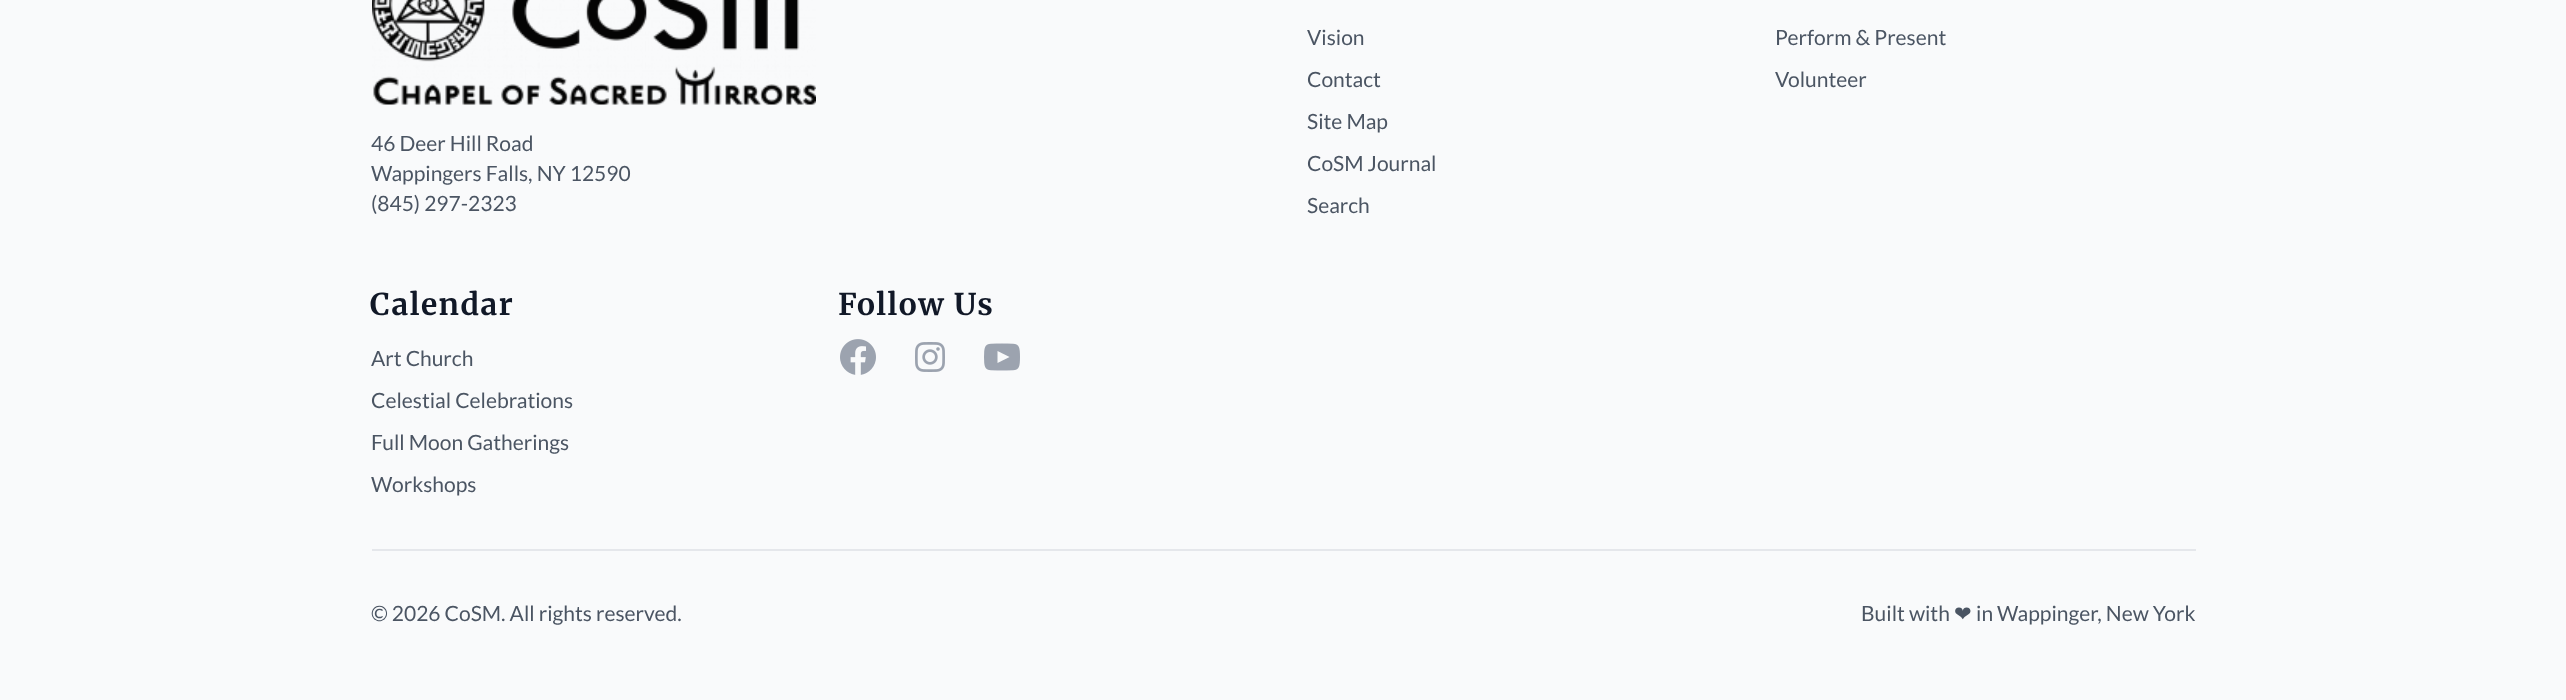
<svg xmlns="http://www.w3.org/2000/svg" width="2566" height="700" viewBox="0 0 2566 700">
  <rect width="100%" height="100%" fill="rgb(249,250,251)"/>
  <g font-family="Lato" font-size="21" fill="rgb(75,85,99)">
    <text x="1307" y="45">Vision</text>
    <text x="1307" y="87">Contact</text>
    <text x="1307" y="129">Site Map</text>
    <text x="1307" y="171">CoSM Journal</text>
    <text x="1307" y="213">Search</text>
    <text x="1775" y="45">Perform &amp; Present</text>
    <text x="1775" y="87">Volunteer</text>
  </g>
  <image x="372" y="0" width="444" height="105" href="pic1.png"/>
  <g font-family="Lato" font-size="21" fill="rgb(75,85,99)">
    <text>
      <tspan x="371" y="151">46 Deer Hill Road</tspan>
      <tspan x="371" y="181">Wappingers Falls, NY 12590</tspan>
      <tspan x="371" y="211">(845) 297-2323</tspan>
    </text>
  </g>
  <text x="370" y="315" font-family="Merriweather" font-size="30" font-weight="bold" letter-spacing="1.5" fill="rgb(17,24,39)">Calendar</text>
  <g font-family="Lato" font-size="21" fill="rgb(75,85,99)">
    <text x="371" y="366">Art Church</text>
    <text x="371" y="408">Celestial Celebrations</text>
    <text x="371" y="450">Full Moon Gatherings</text>
    <text x="371" y="492">Workshops</text>
  </g>
  <text x="838" y="315" font-family="Merriweather" font-size="30" font-weight="bold" letter-spacing="1.5" fill="rgb(17,24,39)">Follow Us</text>
  <image x="840" y="339" width="36" height="36" href="pic2.png"/>
  <image x="915" y="342" width="30" height="30" href="pic3.png"/>
  <image x="984" y="343" width="36" height="28" href="pic4.png"/>
  <rect x="372" y="549" width="1824" height="2" fill="rgb(229,231,235)"/>
  <g font-family="Lato" font-size="21" fill="rgb(75,85,99)">
    <text x="371" y="621">© 2026 CoSM. All rights reserved.</text>
    <text x="1861" y="621">Built with</text>
  </g>
  <text x="1954" y="621" font-family="DejaVu Sans" font-size="21" fill="rgb(75,85,99)">❤</text>
  <text x="1976" y="621" font-family="Lato" font-size="21" fill="rgb(75,85,99)">in Wappinger, New York</text>
</svg>
